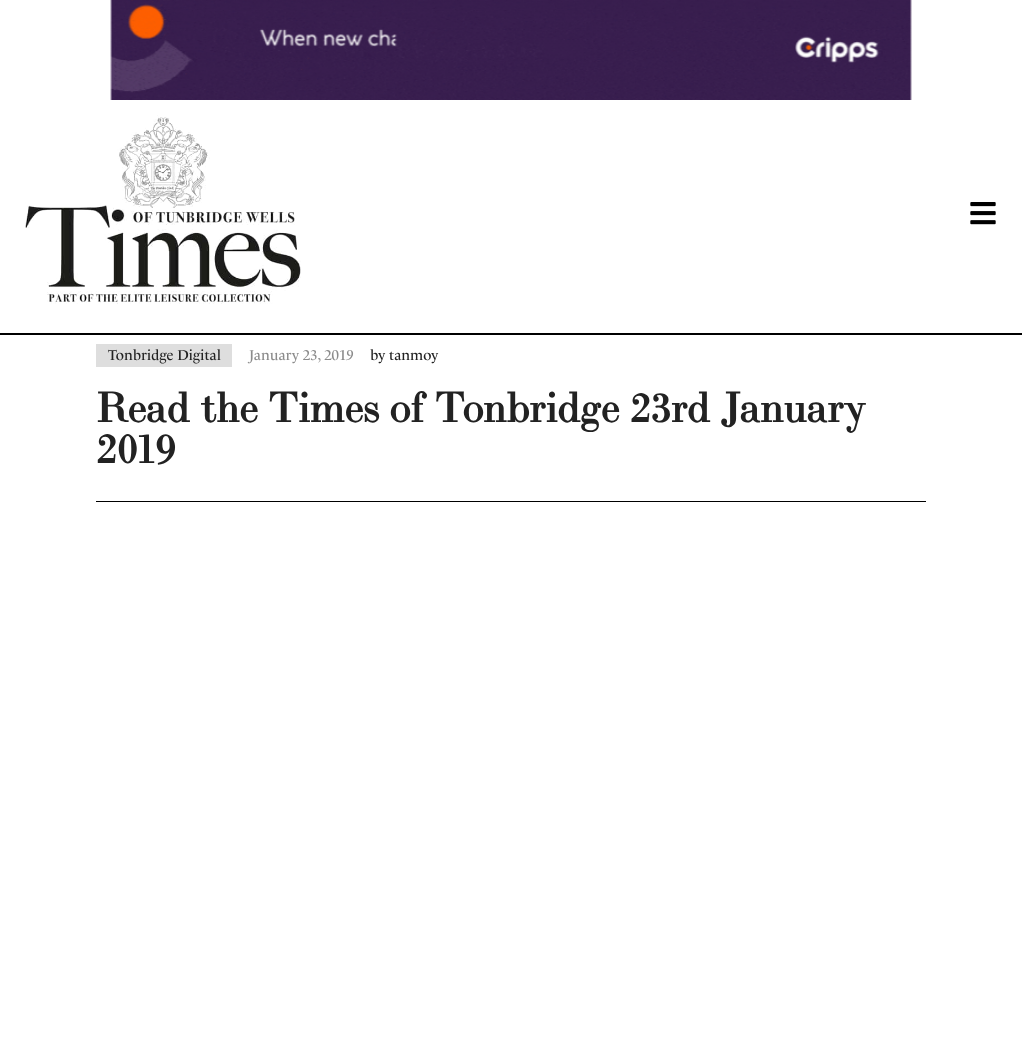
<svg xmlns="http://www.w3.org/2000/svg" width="1022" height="1060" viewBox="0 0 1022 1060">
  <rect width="100%" height="100%" fill="rgb(255,255,255)"/>
  <image x="110" y="0" width="802" height="100" href="pic1.png"/>
  <rect x="0" y="333" width="1022" height="2" fill="rgb(0,0,0)"/>
  <image x="25" y="115" width="276" height="189" href="pic2.png"/>
  <image x="970" y="202" width="26" height="23" href="pic3.png"/>
  <rect x="96" y="344" width="136" height="23" fill="rgb(222,222,222)"/>
  <text x="108" y="360" font-family="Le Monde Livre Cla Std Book" font-size="14.5" fill="rgb(34,34,34)">Tonbridge Digital</text>
  <text x="249" y="360" font-family="Le Monde Livre Cla Std Book" font-size="14.5" fill="rgb(139,139,139)">January 23, 2019</text>
  <text x="370" y="360" font-family="Le Monde Livre Cla Std Book" font-size="14.5" fill="rgb(34,34,34)">by tanmoy</text>
  <g font-family="'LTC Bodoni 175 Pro'" font-size="41.6" font-weight="bold" fill="rgb(34,34,34)">
    <text>
      <tspan x="96" y="422">Read the Times of Tonbridge 23rd January</tspan>
      <tspan x="96" y="463">2019</tspan>
    </text>
  </g>
  <rect x="96" y="501" width="830" height="1" fill="rgb(0,0,0)"/>
</svg>
